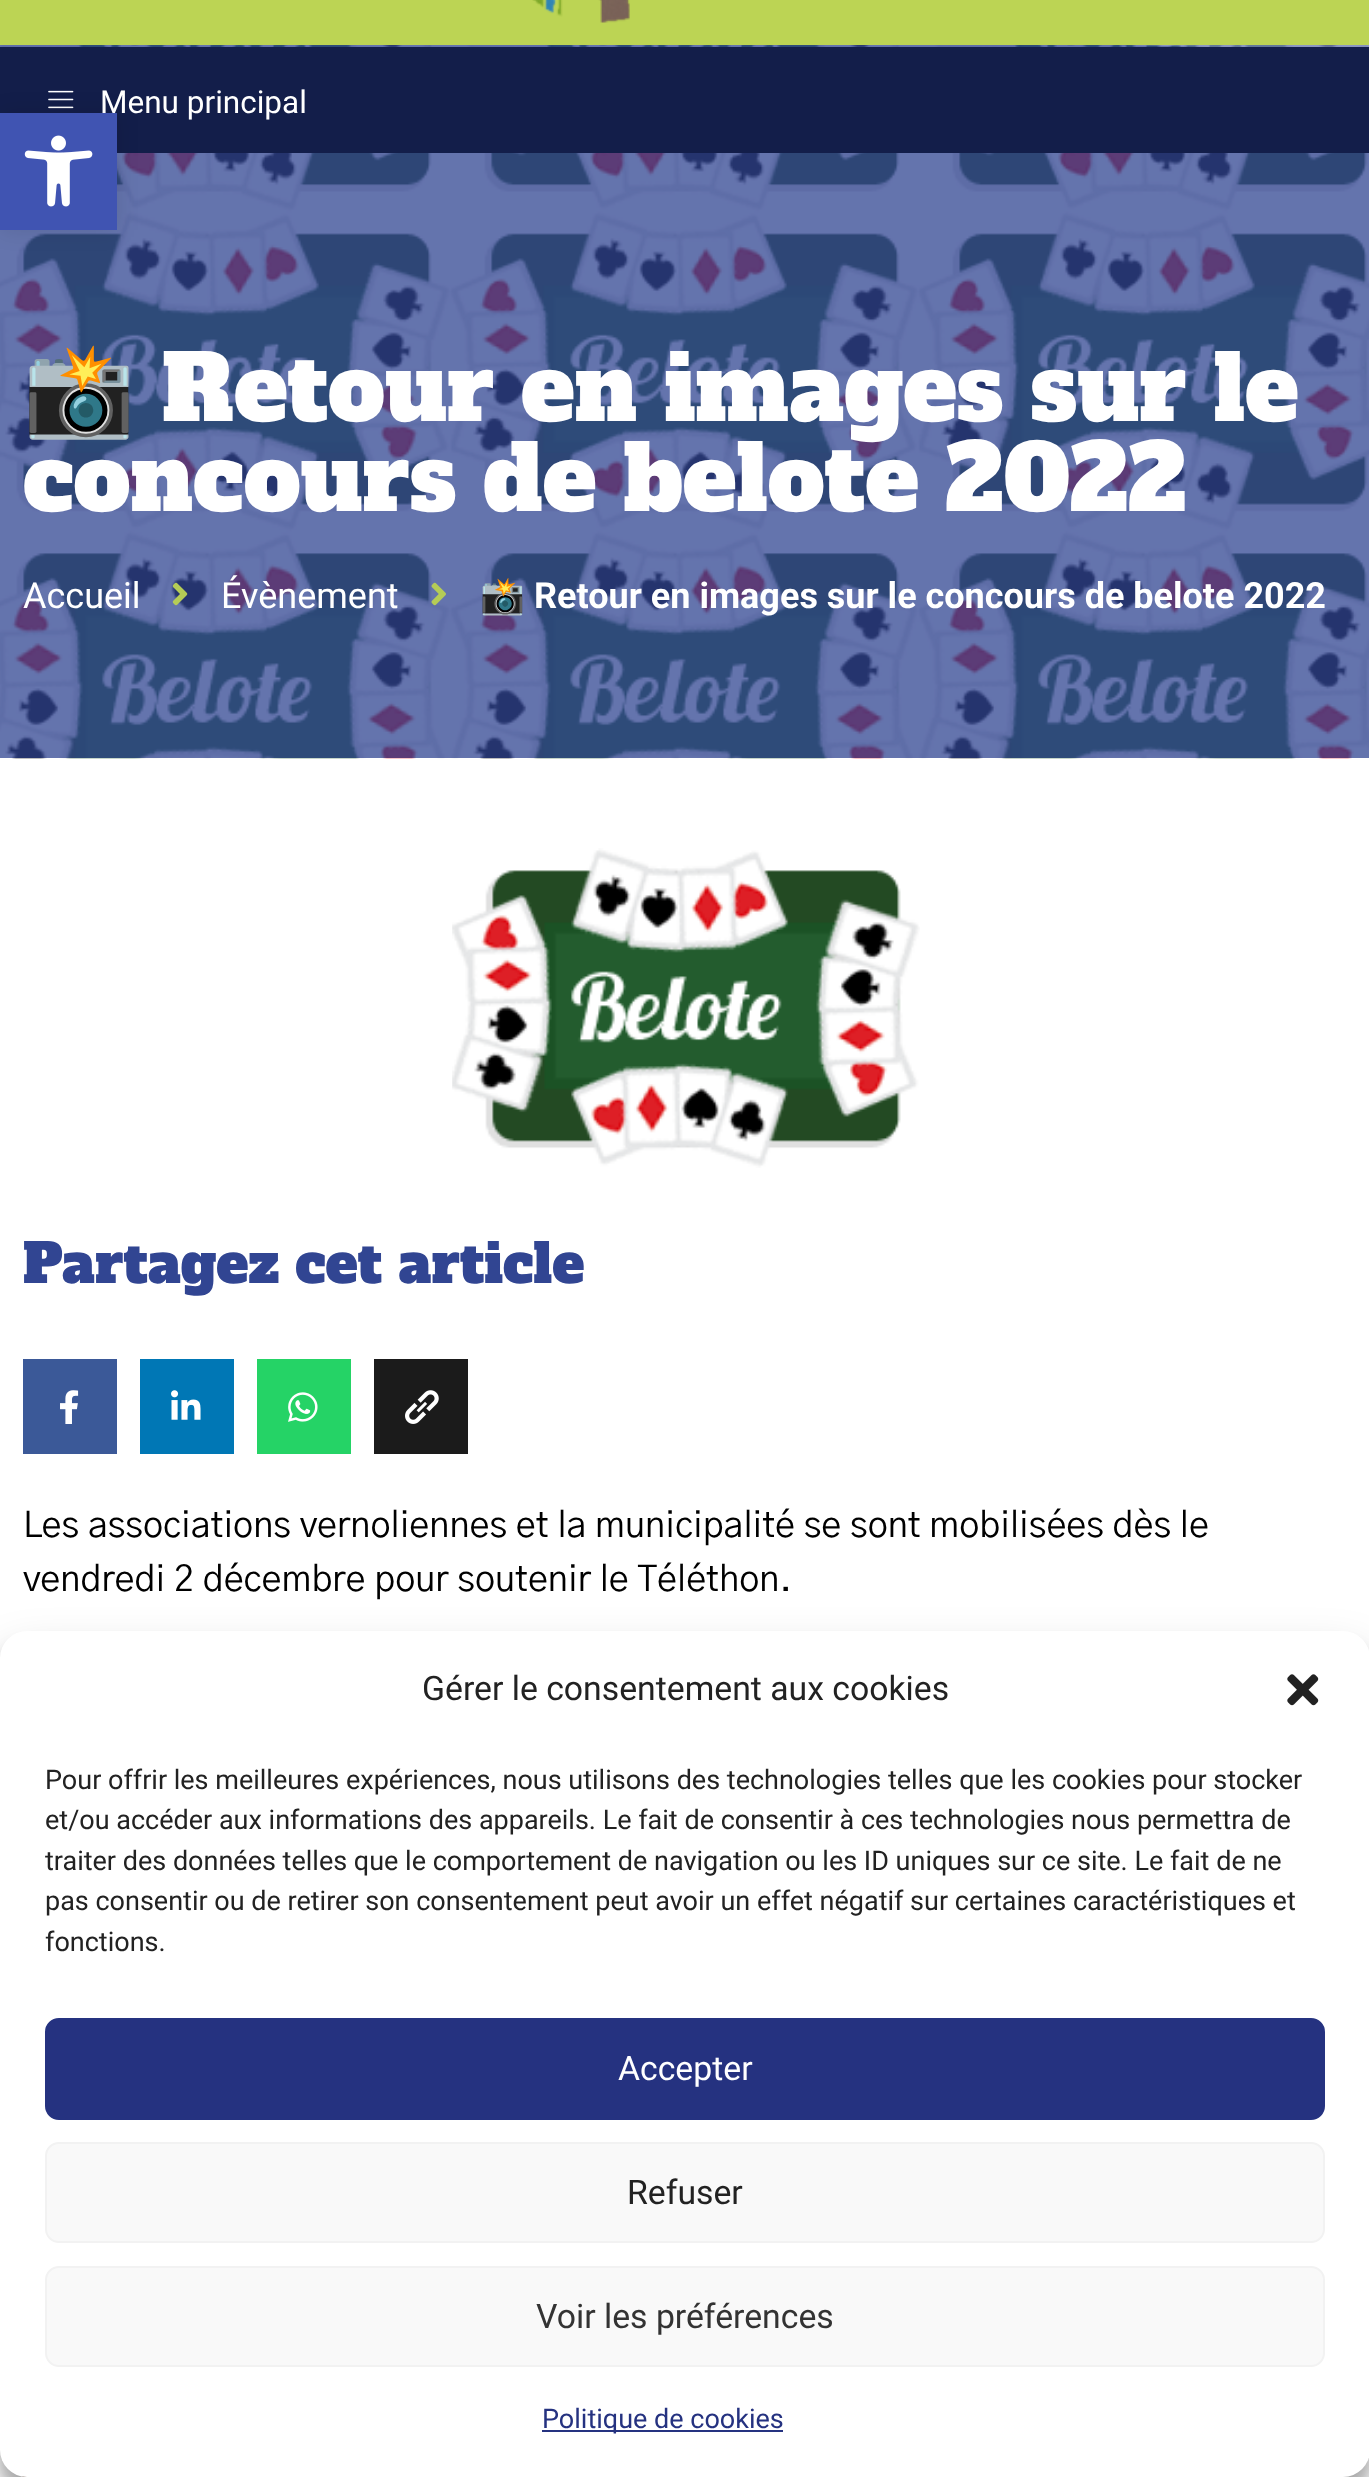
<svg xmlns="http://www.w3.org/2000/svg" width="1369" height="2477" viewBox="0 0 1369 2477">
  <rect width="100%" height="100%" fill="rgb(255,255,255)"/>
  <image x="0" y="45" width="1369" height="714" href="pic4.png"/>
  <path d="M-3-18H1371V51L-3 18Z" fill="rgba(255,255,255,0.25)"/>
  <rect x="0" y="47" width="1369" height="106" fill="rgb(19,30,74)"/>
  <image x="48" y="90" width="26" height="19" href="pic3.png"/>
  <rect x="0" y="113" width="117" height="117" fill="rgba(0,0,0,0.1)" filter="blur(11px)"/>
  <text x="100" y="113" font-family="Roboto" font-size="31.5" fill="rgb(255,255,255)">Menu principal</text>
  <rect x="0" y="113" width="117" height="117" fill="rgb(64,84,178)"/>
  <image x="24" y="135" width="69" height="72" href="pic1.png"/>
  <rect x="0" y="0" width="1369" height="45" fill="rgb(188,212,84)"/>
  <image x="532" y="0" width="98" height="23" href="pic2.png"/>
  <text x="23" y="421" font-family="Noto Color Emoji" font-size="90" fill="rgb(255,255,255)">📸</text>
  <g font-family="Alfa Slab One" font-size="90" fill="rgb(255,255,255)">
    <text x="162" y="421">Retour en images sur le</text>
    <text x="23" y="511">concours de belote 2022</text>
  </g>
  <text x="23" y="608" font-family="Roboto" font-size="36" fill="rgb(255,255,255)">Accueil</text>
  <image x="172" y="582" width="16" height="24" href="pic5.png"/>
  <text x="221" y="608" font-family="Roboto" font-size="36" fill="rgb(255,255,255)">Évènement</text>
  <image x="431" y="582" width="15" height="24" href="pic6.png"/>
  <text x="480" y="608" font-family="Noto Color Emoji" font-size="36" font-weight="bold" fill="rgb(255,255,255)">📸</text>
  <text x="534" y="608" font-family="Roboto" font-size="36" font-weight="bold" fill="rgb(255,255,255)">Retour en images sur le concours de belote 2022</text>
  <image x="452" y="848" width="468" height="320" href="pic7.png"/>
  <text x="23" y="1283" font-family="Alfa Slab One" font-size="54" fill="rgb(49,69,146)">Partagez cet article</text>
  <rect x="23" y="1359" width="94" height="95" fill="rgb(59,89,152)"/>
  <image x="60" y="1390" width="19" height="34" href="pic8.png"/>
  <rect x="140" y="1359" width="94" height="95" fill="rgb(0,119,181)"/>
  <image x="171" y="1390" width="30" height="30" href="pic9.png"/>
  <rect x="257" y="1359" width="94" height="95" fill="rgb(37,211,102)"/>
  <image x="288" y="1392" width="30" height="30" href="pic10.png"/>
  <rect x="374" y="1359" width="94" height="95" fill="rgb(27,27,27)"/>
  <image x="405" y="1390" width="34" height="34" href="pic11.png"/>
  <g font-family="'Gothic A1'" font-size="36" fill="rgb(0,0,0)">
    <text>
      <tspan x="23" y="1537">Les associations vernoliennes et la municipalité se sont mobilisées dès le</tspan>
      <tspan x="23" y="1591">vendredi 2 décembre pour soutenir le Téléthon.</tspan>
    </text>
  </g>
  <image x="22" y="2476" width="5" height="1" href="pic12.png"/>
  <rect x="0" y="1645" width="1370" height="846" rx="27" fill="rgba(0,0,0,0.23)" filter="blur(7px)"/>
  <rect x="0" y="1654" width="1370" height="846" rx="27" fill="rgba(0,0,0,0.19)" filter="blur(22.5px)"/>
  <rect x="0" y="1631" width="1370" height="846" rx="27" fill="rgb(255,255,255)"/>
  <text x="422" y="1700" font-family="Roboto" font-size="33.75" fill="rgb(34,34,34)">Gérer le consentement aux cookies</text>
  <image x="1287" y="1674" width="32" height="32" href="pic13.png"/>
  <g font-family="Roboto" font-size="27" fill="rgb(34,34,34)">
    <text>
      <tspan x="45" y="1789">Pour offrir les meilleures expériences, nous utilisons des technologies telles que les cookies pour stocker</tspan>
      <tspan x="45" y="1829">et/ou accéder aux informations des appareils. Le fait de consentir à ces technologies nous permettra de</tspan>
      <tspan x="45" y="1870">traiter des données telles que le comportement de navigation ou les ID uniques sur ce site. Le fait de ne</tspan>
      <tspan x="45" y="1910">pas consentir ou de retirer son consentement peut avoir un effet négatif sur certaines caractéristiques et</tspan>
      <tspan x="45" y="1951">fonctions.</tspan>
    </text>
  </g>
  <rect x="46" y="2019" width="1278" height="100" rx="13" fill="rgb(37,50,128)" stroke="rgb(37,50,128)" stroke-width="2"/>
  <text x="618" y="2080" font-family="Roboto" font-size="33.75" fill="rgb(255,255,255)">Accepter</text>
  <rect x="46" y="2143" width="1278" height="99" rx="13" fill="rgb(249,249,249)" stroke="rgb(242,242,242)" stroke-width="2"/>
  <text x="627" y="2204" font-family="Roboto" font-size="33.75" fill="rgb(34,34,34)">Refuser</text>
  <rect x="46" y="2267" width="1278" height="99" rx="13" fill="rgb(249,249,249)" stroke="rgb(242,242,242)" stroke-width="2"/>
  <text x="536" y="2328" font-family="Roboto" font-size="33.75" fill="rgb(51,51,51)">Voir les préférences</text>
  <rect x="542" y="2430" width="241" height="2" fill="rgb(37,50,128)"/>
  <text x="542" y="2428" font-family="Roboto" font-size="27" fill="rgb(37,50,128)">Politique de cookies</text>
</svg>
